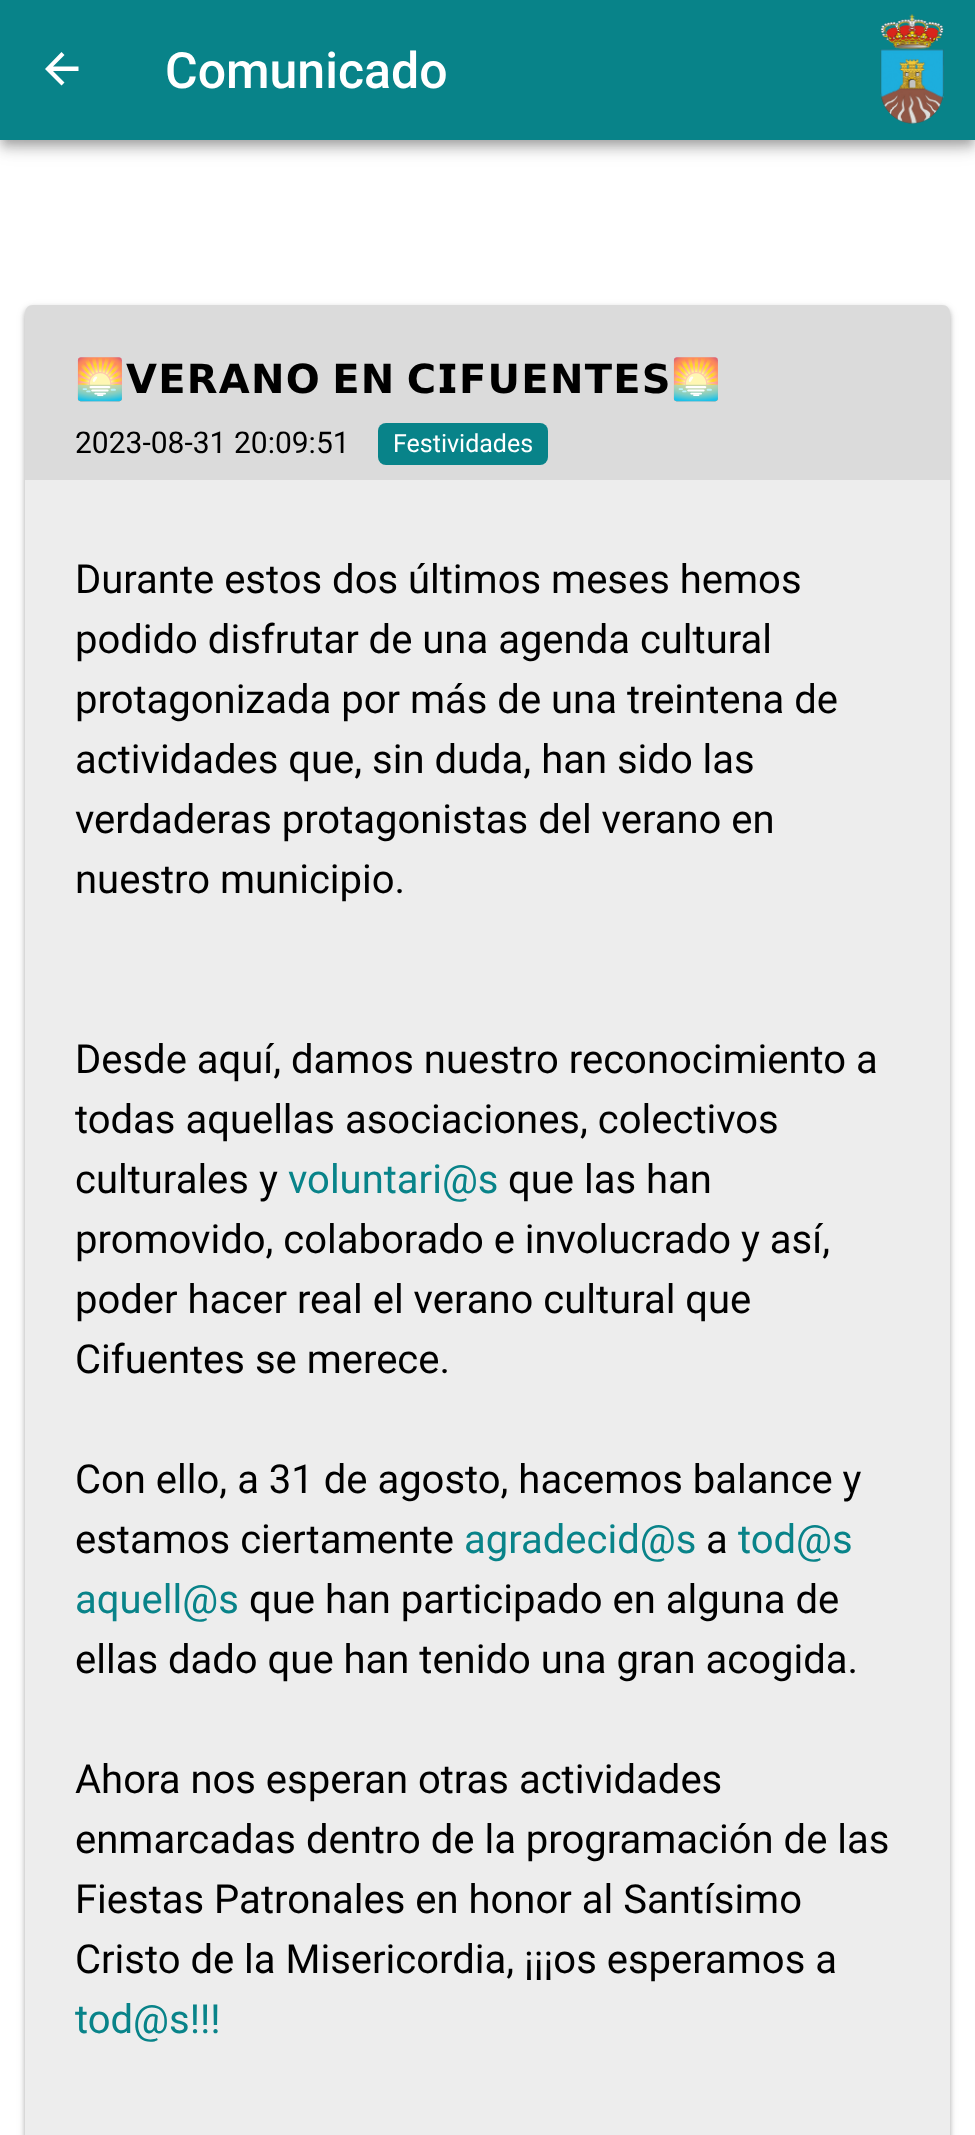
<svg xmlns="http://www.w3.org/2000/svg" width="975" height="2135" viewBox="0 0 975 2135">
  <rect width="100%" height="100%" fill="rgb(255,255,255)"/>
  <rect x="0" y="3" width="975" height="140" fill="rgba(0,0,0,0.12)" filter="blur(12.5px)"/>
  <rect x="0" y="10" width="975" height="140" fill="rgba(0,0,0,0.14)" filter="blur(6px)"/>
  <rect x="3" y="8" width="970" height="135" fill="rgba(0,0,0,0.2)" filter="blur(5px)"/>
  <rect x="0" y="0" width="975" height="140" fill="rgb(8,131,137)"/>
  <path d="M78.5 66.5V71H53L64.5 82.5L61.5 85.5L45 69L61.5 52L64.5 55L53 66.5Z" fill="rgb(255,255,255)"/>
  <text x="165" y="88" font-family="Roboto" font-size="50" font-weight="500" fill="rgb(255,255,255)">Comunicado</text>
  <image x="880" y="14" width="64" height="110" href="pic1.png"/>
  <rect x="25" y="308" width="925" height="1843" rx="8" fill="rgba(0,0,0,0.24)" filter="blur(2.5px)"/>
  <rect x="25" y="308" width="925" height="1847" rx="8" fill="rgba(0,0,0,0.12)" filter="blur(4px)"/>
  <path d="M33 305H942C946.5 305 950 308.5 950 313V2135H25V313C25 308.5 28.5 305 33 305Z" fill="rgb(237,237,237)"/>
  <path d="M33 305H942C946.5 305 950 308.5 950 313V480H25V313C25 308.5 28.5 305 33 305Z" fill="rgb(219,219,219)"/>
  <text x="75" y="393" font-family="Noto Color Emoji" font-size="40" font-weight="bold" letter-spacing="1.25" fill="rgb(0,0,0)">🌅</text>
  <text x="126" y="393" word-spacing="-4" font-family="DejaVu Sans" font-size="40" font-weight="bold" letter-spacing="1.25" fill="rgb(0,0,0)">𝗩𝗘𝗥𝗔𝗡𝗢 𝗘𝗡 𝗖𝗜𝗙𝗨𝗘𝗡𝗧𝗘𝗦</text>
  <text x="671" y="393" font-family="Noto Color Emoji" font-size="40" font-weight="bold" letter-spacing="1.25" fill="rgb(0,0,0)">🌅</text>
  <text x="75" y="453" font-family="Roboto" font-size="30" fill="rgb(0,0,0)">2023-08-31 20:09:51</text>
  <rect x="378" y="423" width="170" height="42" rx="8" fill="rgb(8,131,137)"/>
  <text x="393" y="452" font-family="Roboto" font-size="25" fill="rgb(255,255,255)">Festividades</text>
  <g font-family="Roboto" font-size="40" fill="rgb(0,0,0)">
    <text>
      <tspan x="75" y="593">Durante estos dos últimos meses hemos</tspan>
      <tspan x="75" y="653">podido disfrutar de una agenda cultural</tspan>
      <tspan x="75" y="713">protagonizada por más de una treintena de</tspan>
      <tspan x="75" y="773">actividades que, sin duda, han sido las</tspan>
      <tspan x="75" y="833">verdaderas protagonistas del verano en</tspan>
      <tspan x="75" y="893">nuestro municipio.</tspan>
    </text>
    <text>
      <tspan x="75" y="1073">Desde aquí, damos nuestro reconocimiento a</tspan>
      <tspan x="75" y="1133">todas aquellas asociaciones, colectivos</tspan>
      <tspan x="75" y="1193">culturales y</tspan>
    </text>
  </g>
  <text x="288" y="1193" font-family="Roboto" font-size="40" fill="rgb(8,131,137)">voluntari@s</text>
  <g font-family="Roboto" font-size="40" fill="rgb(0,0,0)">
    <text x="508" y="1193">que las han</text>
    <text>
      <tspan x="75" y="1253">promovido, colaborado e involucrado y así,</tspan>
      <tspan x="75" y="1313">poder hacer real el verano cultural que</tspan>
      <tspan x="75" y="1373">Cifuentes se merece.</tspan>
    </text>
    <text>
      <tspan x="75" y="1493">Con ello, a 31 de agosto, hacemos balance y</tspan>
      <tspan x="75" y="1553">estamos ciertamente</tspan>
    </text>
  </g>
  <text x="464" y="1553" font-family="Roboto" font-size="40" fill="rgb(8,131,137)">agradecid@s</text>
  <text x="706" y="1553" font-family="Roboto" font-size="40" fill="rgb(0,0,0)">a</text>
  <g font-family="Roboto" font-size="40" fill="rgb(8,131,137)">
    <text x="738" y="1553">tod@s</text>
    <text x="75" y="1613">aquell@s</text>
  </g>
  <g font-family="Roboto" font-size="40" fill="rgb(0,0,0)">
    <text x="249" y="1613">que han participado en alguna de</text>
    <text x="75" y="1673">ellas dado que han tenido una gran acogida.</text>
    <text>
      <tspan x="75" y="1793">Ahora nos esperan otras actividades</tspan>
      <tspan x="75" y="1853">enmarcadas dentro de la programación de las</tspan>
      <tspan x="75" y="1913">Fiestas Patronales en honor al Santísimo</tspan>
      <tspan x="75" y="1973">Cristo de la Misericordia, ¡¡¡os esperamos a</tspan>
    </text>
  </g>
  <text x="75" y="2033" font-family="Roboto" font-size="40" fill="rgb(8,131,137)">tod@s!!!</text>
</svg>
